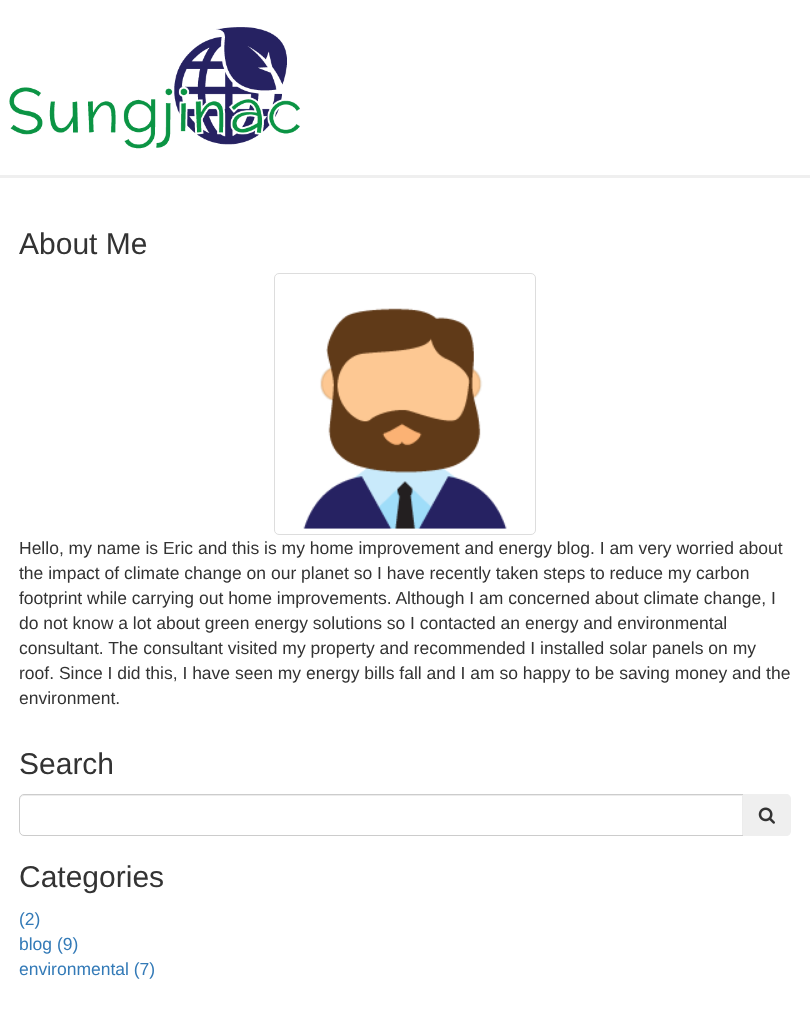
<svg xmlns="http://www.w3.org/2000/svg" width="810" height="1027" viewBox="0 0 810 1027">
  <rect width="100%" height="100%" fill="rgb(255,255,255)"/>
  <rect x="0" y="175" width="810" height="3" fill="rgb(239,239,239)"/>
  <image x="9" y="27" width="291" height="122" href="pic1.png"/>
  <text x="19" y="254" font-family="Liberation Sans" font-size="30" fill="rgb(51,51,51)">About Me</text>
  <rect x="274.5" y="273.5" width="261" height="261" rx="4.5" fill="none" stroke="rgb(221,221,221)"/>
  <image x="303" y="308" width="204" height="221" href="pic2.png"/>
  <g font-family="Liberation Sans" font-size="17.5" fill="rgb(51,51,51)">
    <text>
      <tspan x="19" y="554">Hello, my name is Eric and this is my home improvement and energy blog. I am very worried about</tspan>
      <tspan x="19" y="579">the impact of climate change on our planet so I have recently taken steps to reduce my carbon</tspan>
      <tspan x="19" y="604">footprint while carrying out home improvements. Although I am concerned about climate change, I</tspan>
      <tspan x="19" y="629">do not know a lot about green energy solutions so I contacted an energy and environmental</tspan>
      <tspan x="19" y="654">consultant. The consultant visited my property and recommended I installed solar panels on my</tspan>
      <tspan x="19" y="679">roof. Since I did this, I have seen my energy bills fall and I am so happy to be saving money and the</tspan>
      <tspan x="19" y="704">environment.</tspan>
    </text>
  </g>
  <text x="19" y="774" font-family="Liberation Sans" font-size="30" fill="rgb(51,51,51)">Search</text>
  <path d="M24 796H742V835H743V795H24C22 795 20 797 20 799V800C20 798 22 796 24 796Z" fill="rgb(236,236,236)"/>
  <path d="M24 794.5H743.5V835.5H24C21.5 835.5 19.5 833.5 19.5 831V799C19.5 796.5 21.5 794.5 24 794.5Z" fill="none" stroke="rgb(204,204,204)"/>
  <path d="M743 794H786C789 794 791 796 791 799V831C791 834 789 836 786 836H743Z" fill="rgb(239,239,239)"/>
  <image x="758" y="807" width="17" height="17" href="pic3.png"/>
  <text x="19" y="887" font-family="Liberation Sans" font-size="30" fill="rgb(51,51,51)">Categories</text>
  <g font-family="Liberation Sans" font-size="17.5" fill="rgb(51,122,183)">
    <text>
      <tspan x="19" y="925">(2)</tspan>
      <tspan x="19" y="950">blog (9)</tspan>
      <tspan x="19" y="975">environmental (7)</tspan>
    </text>
  </g>
</svg>
